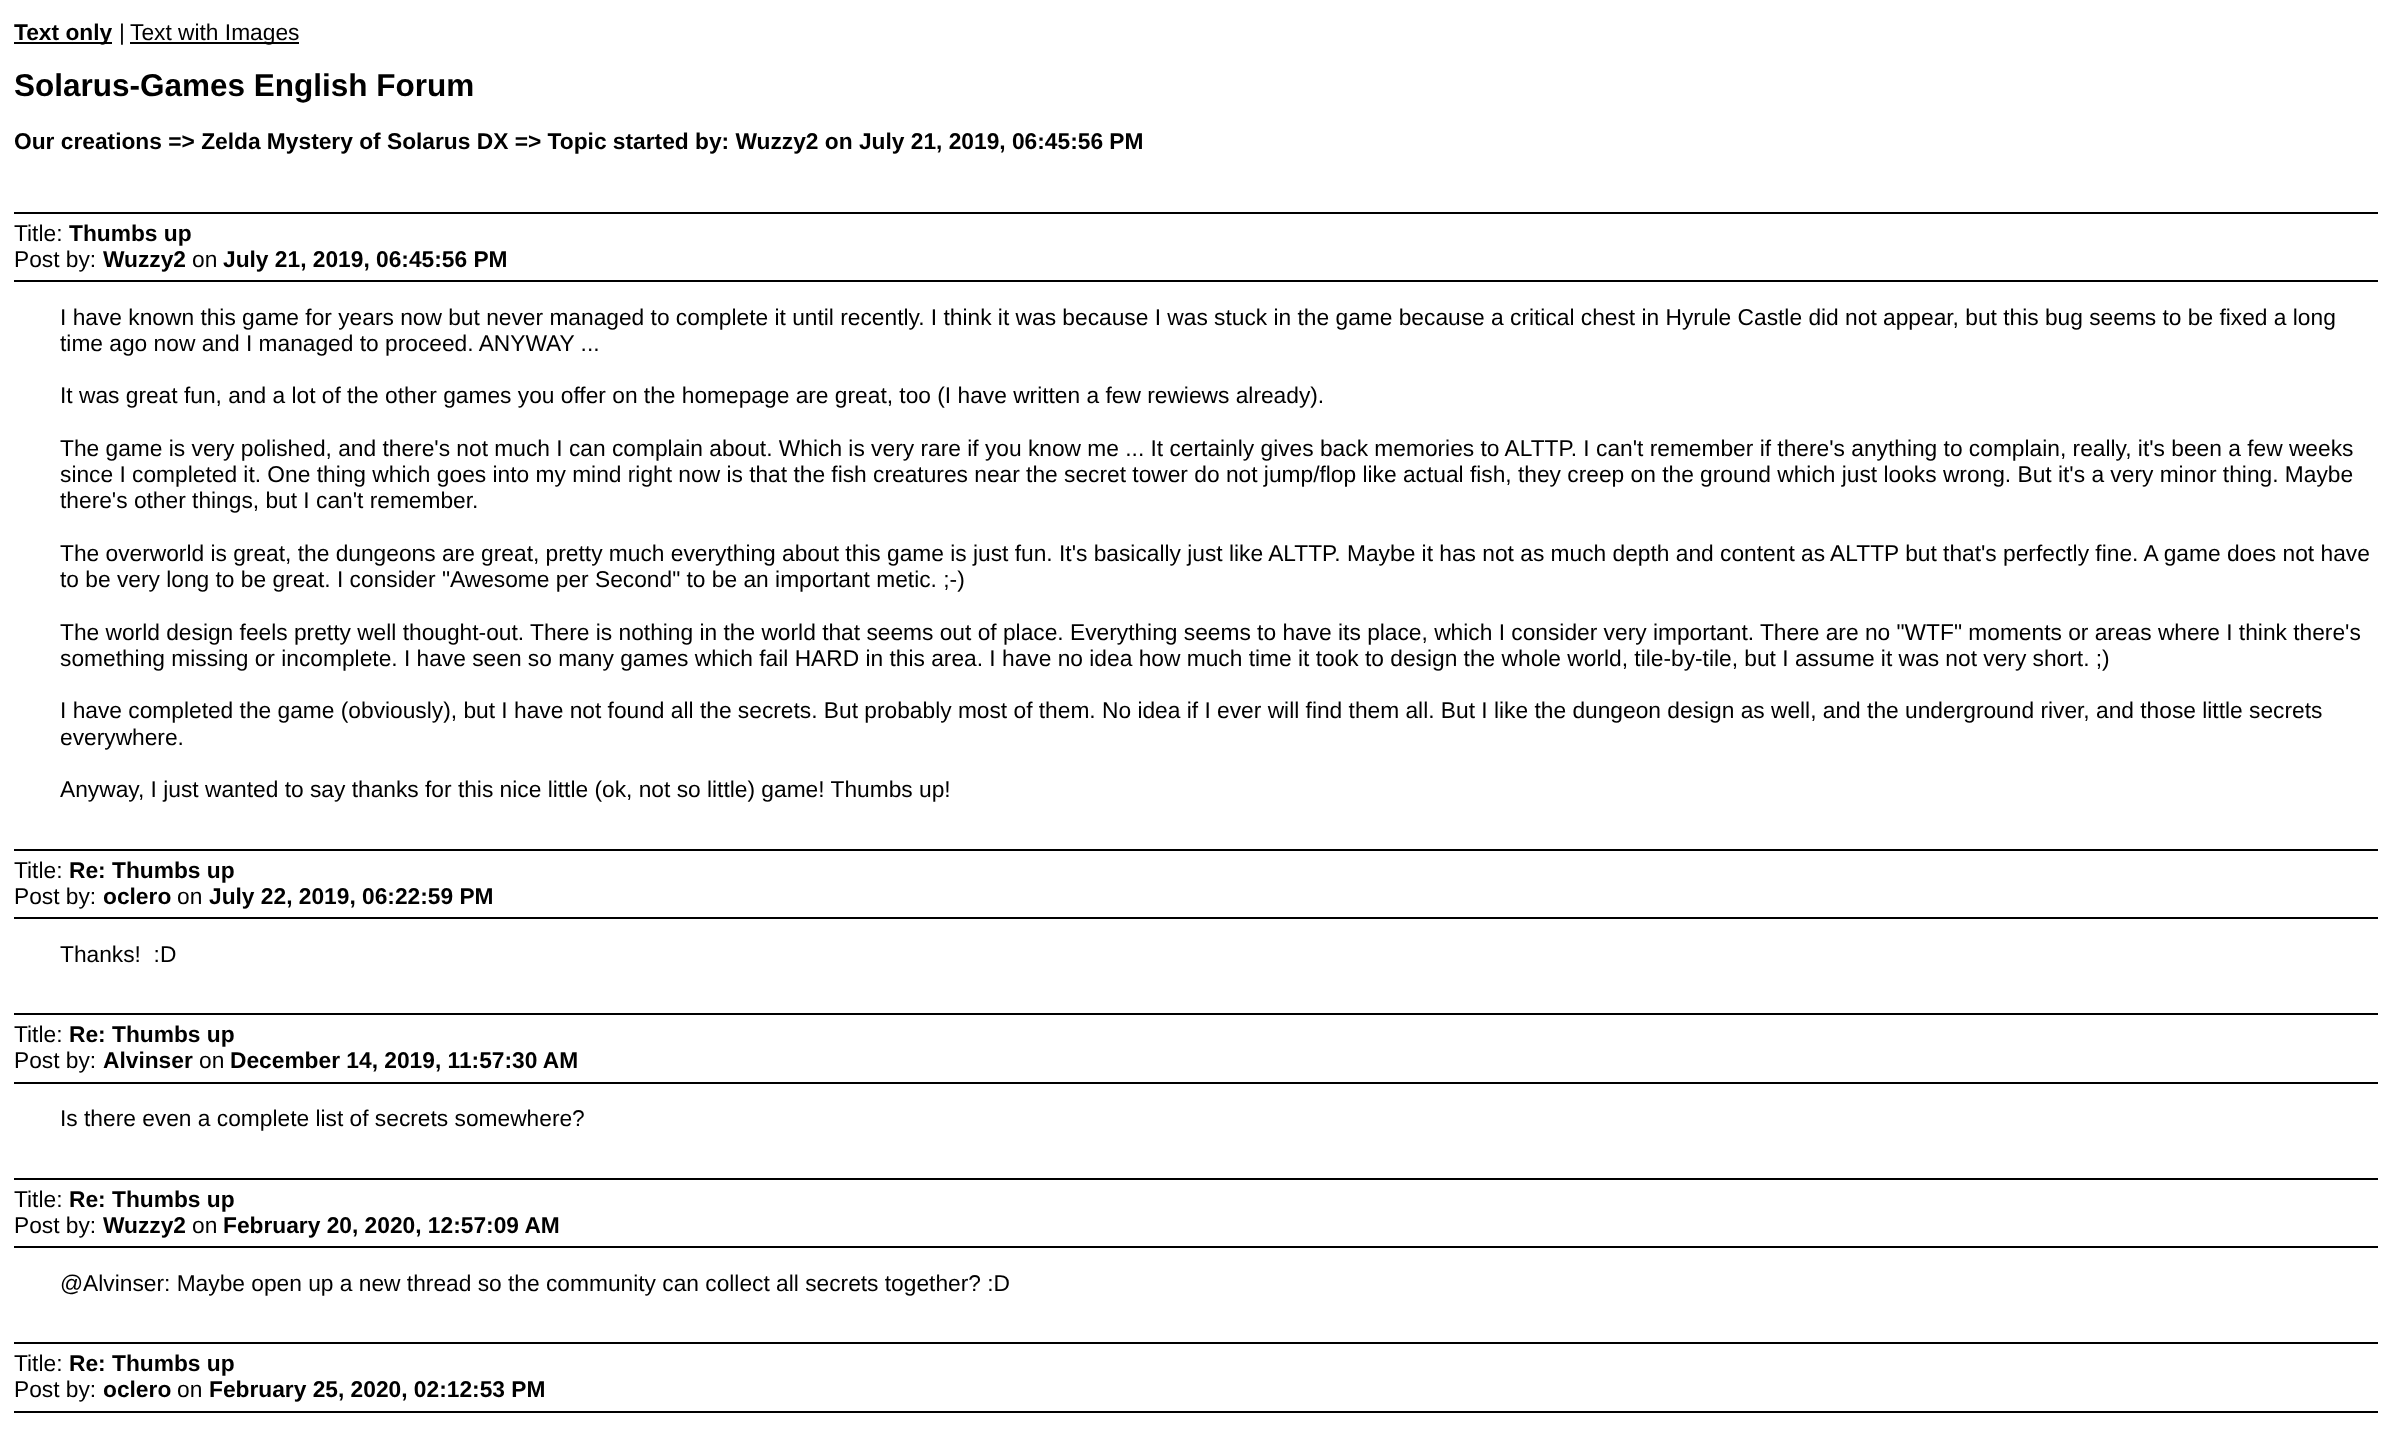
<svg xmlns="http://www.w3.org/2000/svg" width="2391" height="1429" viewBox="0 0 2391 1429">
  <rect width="100%" height="100%" fill="rgb(255,255,255)"/>
  <rect x="14" y="42" width="98" height="2" fill="rgb(0,0,0)"/>
  <text x="14" y="40" font-family="Liberation Sans" font-size="22.75" font-weight="bold" fill="rgb(0,0,0)">Text only</text>
  <text x="119" y="40" font-family="Liberation Sans" font-size="22.75" fill="rgb(0,0,0)">|</text>
  <rect x="130" y="42" width="169" height="2" fill="rgb(0,0,0)"/>
  <text x="130" y="40" font-family="Liberation Sans" font-size="22.75" fill="rgb(0,0,0)">Text with Images</text>
  <text x="14" y="96" font-family="Liberation Sans" font-size="31.5" font-weight="bold" fill="rgb(0,0,0)">Solarus-Games English Forum</text>
  <text x="14" y="149" font-family="Liberation Sans" font-size="22.75" font-weight="bold" fill="rgb(0,0,0)">Our creations =&gt; Zelda Mystery of Solarus DX =&gt; Topic started by: Wuzzy2 on July 21, 2019, 06:45:56 PM</text>
  <rect x="14" y="212" width="2364" height="2" fill="rgb(0,0,0)"/>
  <rect x="14" y="280" width="2364" height="2" fill="rgb(0,0,0)"/>
  <text x="14" y="241" font-family="Liberation Sans" font-size="22.75" fill="rgb(0,0,0)">Title:</text>
  <text x="69" y="241" font-family="Liberation Sans" font-size="22.75" font-weight="bold" fill="rgb(0,0,0)">Thumbs up</text>
  <text x="14" y="267" font-family="Liberation Sans" font-size="22.75" fill="rgb(0,0,0)">Post by:</text>
  <text x="103" y="267" font-family="Liberation Sans" font-size="22.75" font-weight="bold" fill="rgb(0,0,0)">Wuzzy2</text>
  <text x="192" y="267" font-family="Liberation Sans" font-size="22.75" fill="rgb(0,0,0)">on</text>
  <text x="223" y="267" font-family="Liberation Sans" font-size="22.75" font-weight="bold" fill="rgb(0,0,0)">July 21, 2019, 06:45:56 PM</text>
  <g font-family="Liberation Sans" font-size="22.75" fill="rgb(0,0,0)">
    <text>
      <tspan x="60" y="325">I have known this game for years now but never managed to complete it until recently. I think it was because I was stuck in the game because a critical chest in Hyrule Castle did not appear, but this bug seems to be fixed a long</tspan>
      <tspan x="60" y="351">time ago now and I managed to proceed. ANYWAY ...</tspan>
    </text>
    <text x="60" y="403">It was great fun, and a lot of the other games you offer on the homepage are great, too (I have written a few rewiews already).</text>
    <text>
      <tspan x="60" y="456">The game is very polished, and there's not much I can complain about. Which is very rare if you know me ... It certainly gives back memories to ALTTP. I can't remember if there's anything to complain, really, it's been a few weeks</tspan>
      <tspan x="60" y="482">since I completed it. One thing which goes into my mind right now is that the fish creatures near the secret tower do not jump/flop like actual fish, they creep on the ground which just looks wrong. But it's a very minor thing. Maybe</tspan>
      <tspan x="60" y="508">there's other things, but I can't remember.</tspan>
    </text>
    <text>
      <tspan x="60" y="561">The overworld is great, the dungeons are great, pretty much everything about this game is just fun. It's basically just like ALTTP. Maybe it has not as much depth and content as ALTTP but that's perfectly fine. A game does not have</tspan>
      <tspan x="60" y="587">to be very long to be great. I consider "Awesome per Second" to be an important metic. ;-)</tspan>
    </text>
    <text>
      <tspan x="60" y="640">The world design feels pretty well thought-out. There is nothing in the world that seems out of place. Everything seems to have its place, which I consider very important. There are no "WTF" moments or areas where I think there's</tspan>
      <tspan x="60" y="666">something missing or incomplete. I have seen so many games which fail HARD in this area. I have no idea how much time it took to design the whole world, tile-by-tile, but I assume it was not very short. ;)</tspan>
    </text>
    <text>
      <tspan x="60" y="718">I have completed the game (obviously), but I have not found all the secrets. But probably most of them. No idea if I ever will find them all. But I like the dungeon design as well, and the underground river, and those little secrets</tspan>
      <tspan x="60" y="745">everywhere.</tspan>
    </text>
    <text x="60" y="797">Anyway, I just wanted to say thanks for this nice little (ok, not so little) game! Thumbs up!</text>
  </g>
  <rect x="14" y="849" width="2364" height="2" fill="rgb(0,0,0)"/>
  <rect x="14" y="917" width="2364" height="2" fill="rgb(0,0,0)"/>
  <text x="14" y="878" font-family="Liberation Sans" font-size="22.75" fill="rgb(0,0,0)">Title:</text>
  <text x="69" y="878" font-family="Liberation Sans" font-size="22.75" font-weight="bold" fill="rgb(0,0,0)">Re: Thumbs up</text>
  <text x="14" y="904" font-family="Liberation Sans" font-size="22.75" fill="rgb(0,0,0)">Post by:</text>
  <text x="103" y="904" font-family="Liberation Sans" font-size="22.75" font-weight="bold" fill="rgb(0,0,0)">oclero</text>
  <text x="177" y="904" font-family="Liberation Sans" font-size="22.75" fill="rgb(0,0,0)">on</text>
  <text x="209" y="904" font-family="Liberation Sans" font-size="22.75" font-weight="bold" fill="rgb(0,0,0)">July 22, 2019, 06:22:59 PM</text>
  <text x="60" y="962" font-family="Liberation Sans" font-size="22.75" fill="rgb(0,0,0)" xml:space="preserve">Thanks!  :D</text>
  <rect x="14" y="1013" width="2364" height="2" fill="rgb(0,0,0)"/>
  <rect x="14" y="1082" width="2364" height="2" fill="rgb(0,0,0)"/>
  <text x="14" y="1042" font-family="Liberation Sans" font-size="22.75" fill="rgb(0,0,0)">Title:</text>
  <text x="69" y="1042" font-family="Liberation Sans" font-size="22.75" font-weight="bold" fill="rgb(0,0,0)">Re: Thumbs up</text>
  <text x="14" y="1068" font-family="Liberation Sans" font-size="22.75" fill="rgb(0,0,0)">Post by:</text>
  <text x="103" y="1068" font-family="Liberation Sans" font-size="22.75" font-weight="bold" fill="rgb(0,0,0)">Alvinser</text>
  <text x="199" y="1068" font-family="Liberation Sans" font-size="22.75" fill="rgb(0,0,0)">on</text>
  <text x="230" y="1068" font-family="Liberation Sans" font-size="22.75" font-weight="bold" fill="rgb(0,0,0)">December 14, 2019, 11:57:30 AM</text>
  <text x="60" y="1126" font-family="Liberation Sans" font-size="22.75" fill="rgb(0,0,0)">Is there even a complete list of secrets somewhere?</text>
  <rect x="14" y="1178" width="2364" height="2" fill="rgb(0,0,0)"/>
  <rect x="14" y="1246" width="2364" height="2" fill="rgb(0,0,0)"/>
  <text x="14" y="1207" font-family="Liberation Sans" font-size="22.75" fill="rgb(0,0,0)">Title:</text>
  <text x="69" y="1207" font-family="Liberation Sans" font-size="22.75" font-weight="bold" fill="rgb(0,0,0)">Re: Thumbs up</text>
  <text x="14" y="1233" font-family="Liberation Sans" font-size="22.75" fill="rgb(0,0,0)">Post by:</text>
  <text x="103" y="1233" font-family="Liberation Sans" font-size="22.75" font-weight="bold" fill="rgb(0,0,0)">Wuzzy2</text>
  <text x="192" y="1233" font-family="Liberation Sans" font-size="22.75" fill="rgb(0,0,0)">on</text>
  <text x="223" y="1233" font-family="Liberation Sans" font-size="22.75" font-weight="bold" fill="rgb(0,0,0)">February 20, 2020, 12:57:09 AM</text>
  <text x="60" y="1291" font-family="Liberation Sans" font-size="22.75" fill="rgb(0,0,0)">@Alvinser: Maybe open up a new thread so the community can collect all secrets together? :D</text>
  <rect x="14" y="1342" width="2364" height="2" fill="rgb(0,0,0)"/>
  <rect x="14" y="1411" width="2364" height="2" fill="rgb(0,0,0)"/>
  <text x="14" y="1371" font-family="Liberation Sans" font-size="22.75" fill="rgb(0,0,0)">Title:</text>
  <text x="69" y="1371" font-family="Liberation Sans" font-size="22.75" font-weight="bold" fill="rgb(0,0,0)">Re: Thumbs up</text>
  <text x="14" y="1397" font-family="Liberation Sans" font-size="22.75" fill="rgb(0,0,0)">Post by:</text>
  <text x="103" y="1397" font-family="Liberation Sans" font-size="22.75" font-weight="bold" fill="rgb(0,0,0)">oclero</text>
  <text x="177" y="1397" font-family="Liberation Sans" font-size="22.75" fill="rgb(0,0,0)">on</text>
  <text x="209" y="1397" font-family="Liberation Sans" font-size="22.75" font-weight="bold" fill="rgb(0,0,0)">February 25, 2020, 02:12:53 PM</text>
</svg>
